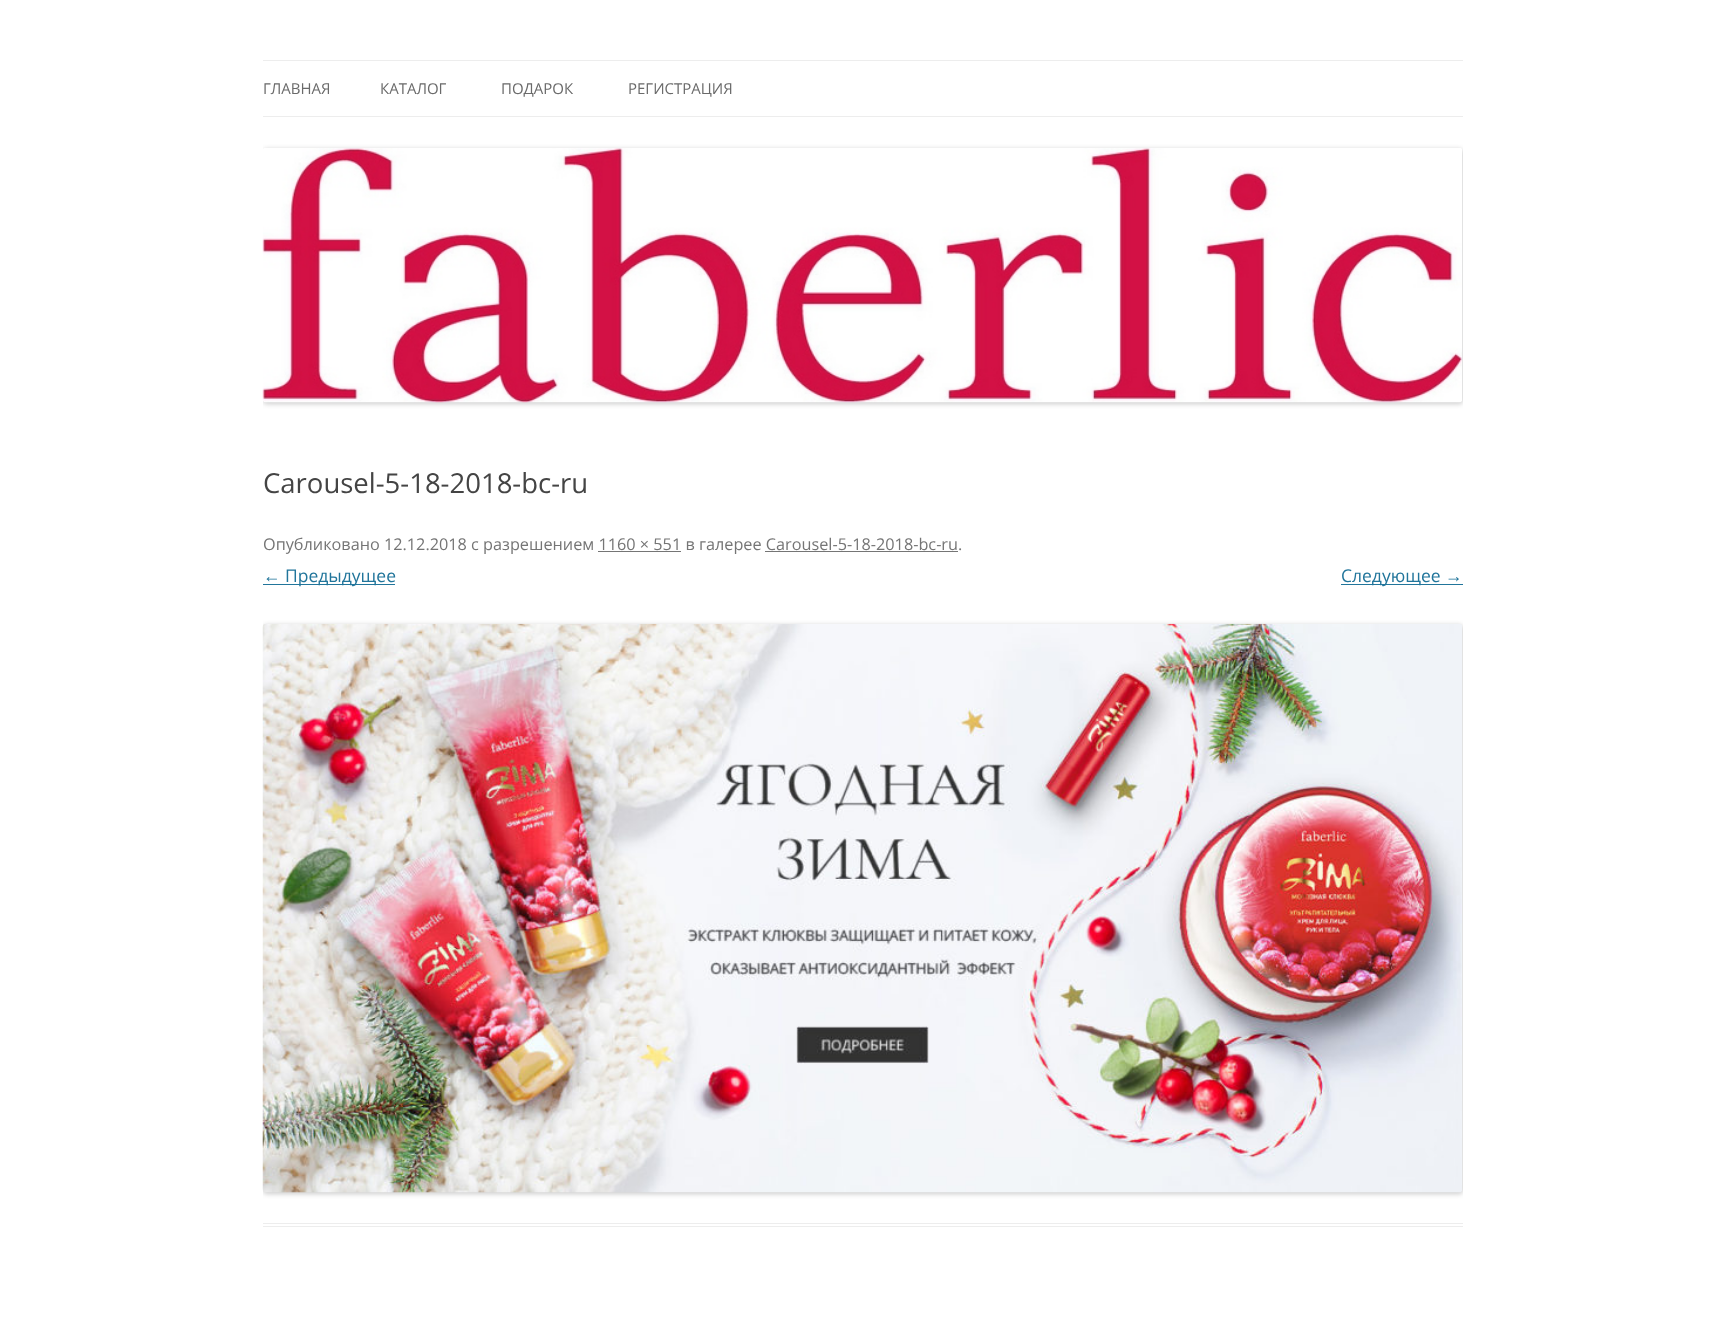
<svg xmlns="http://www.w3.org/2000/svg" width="1724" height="1317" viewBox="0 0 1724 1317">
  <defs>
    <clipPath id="clip1"><rect x="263" y="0" width="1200" height="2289"/></clipPath>
  </defs>
  <rect width="100%" height="100%" fill="rgb(255,255,255)"/>
  <rect x="263" y="60" width="1200" height="1" fill="rgb(237,237,237)"/>
  <rect x="263" y="116" width="1200" height="1" fill="rgb(237,237,237)"/>
  <g font-family="Open Sans" font-size="15" fill="rgb(106,106,106)">
    <text x="263" y="94">ГЛАВНАЯ</text>
    <text x="380" y="94">КАТАЛОГ</text>
    <text x="501" y="94">ПОДАРОК</text>
    <text x="628" y="94">РЕГИСТРАЦИЯ</text>
  </g>
  <g clip-path="url(#clip1)">
    <rect x="263" y="149" width="1200" height="255" rx="4" fill="rgba(0,0,0,0.2)" filter="blur(2.5px)"/>
  </g>
  <image x="262" y="148" width="1200" height="255" href="pic1.png"/>
  <rect x="263" y="1223" width="1200" height="1" fill="rgb(237,237,237)"/>
  <rect x="263" y="1226" width="1200" height="1" fill="rgb(237,237,237)"/>
  <text x="263" y="493" font-family="Open Sans" font-size="27.5" fill="rgb(68,68,68)">Carousel-5-18-2018-bc-ru</text>
  <text x="263" y="550" font-family="Open Sans" font-size="16.25" fill="rgb(117,117,117)">Опубликовано 12.12.2018 с разрешением 1160 × 551 в галерее Carousel-5-18-2018-bc-ru.</text>
  <rect x="598" y="551" width="83" height="1" fill="rgb(117,117,117)"/>
  <rect x="765" y="551" width="193" height="1" fill="rgb(117,117,117)"/>
  <text x="263" y="582" font-family="Liberation Sans" font-size="17.5" fill="rgb(33,117,155)">←</text>
  <rect x="263" y="584" width="132" height="1" fill="rgb(33,117,155)"/>
  <text x="285" y="582" font-family="Open Sans" font-size="17.5" fill="rgb(33,117,155)">Предыдущее</text>
  <rect x="1341" y="584" width="122" height="1" fill="rgb(33,117,155)"/>
  <text x="1341" y="582" font-family="Open Sans" font-size="17.5" fill="rgb(33,117,155)">Следующее</text>
  <text x="1445" y="582" font-family="Liberation Sans" font-size="17.5" fill="rgb(33,117,155)">→</text>
  <g clip-path="url(#clip1)">
    <rect x="263" y="625" width="1200" height="569" rx="4" fill="rgba(0,0,0,0.2)" filter="blur(2.5px)"/>
  </g>
  <image x="262" y="623" width="1200" height="570" href="pic2.png"/>
</svg>
